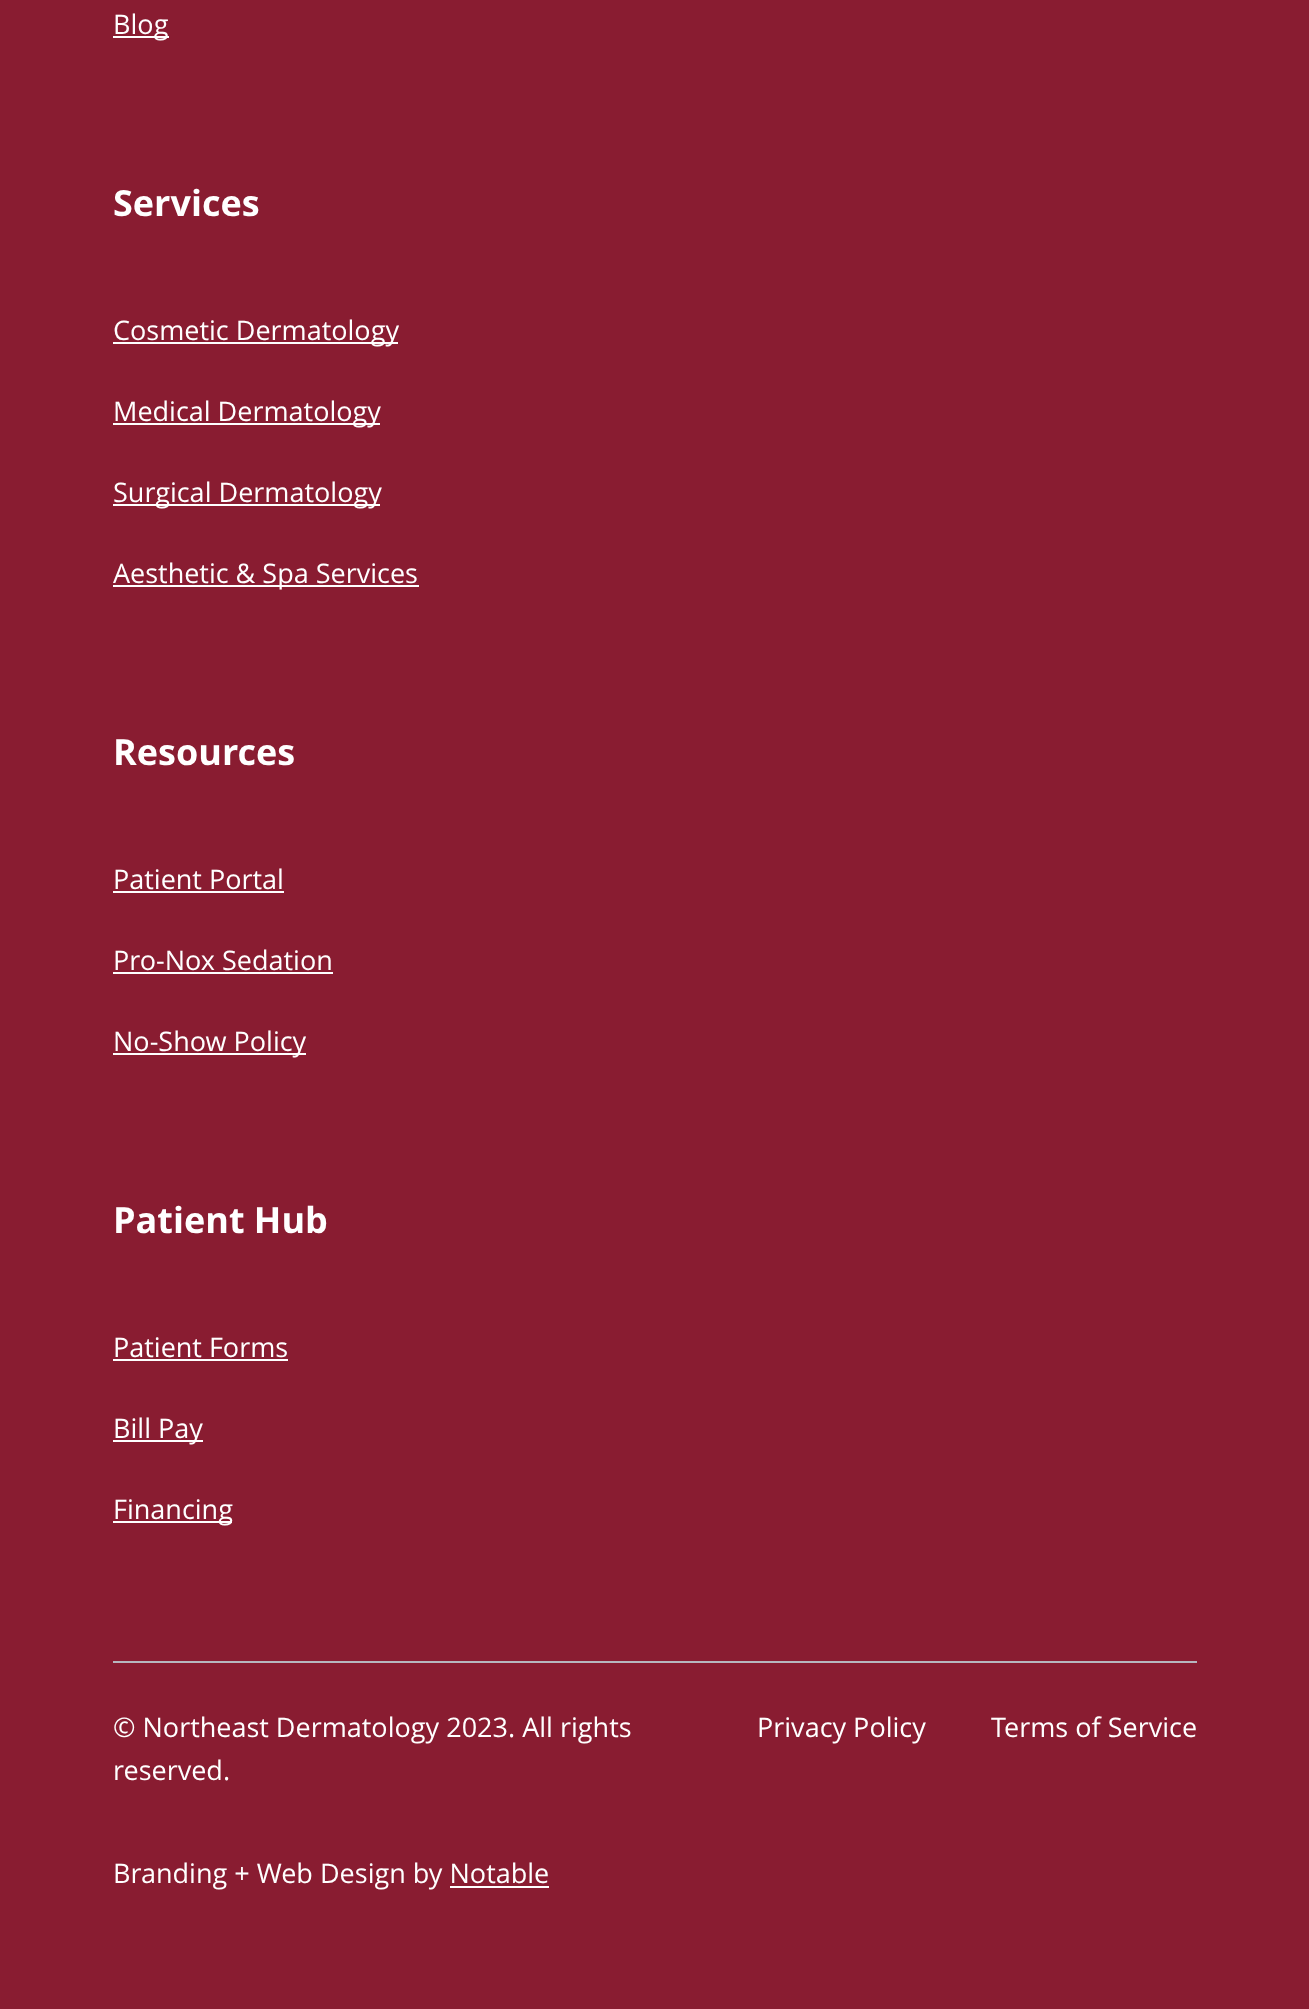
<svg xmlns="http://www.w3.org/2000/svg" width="1309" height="2009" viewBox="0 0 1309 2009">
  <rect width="100%" height="100%" fill="rgb(137,28,49)"/>
  <rect x="113" y="36" width="56" height="2" fill="rgb(255,255,255)"/>
  <text x="113" y="34" font-family="Open Sans" font-size="27" fill="rgb(255,255,255)">Blog</text>
  <text x="113" y="216" font-family="Open Sans" font-size="36" font-weight="bold" fill="rgb(255,255,255)">Services</text>
  <rect x="113" y="342" width="285" height="2" fill="rgb(255,255,255)"/>
  <text x="113" y="340" font-family="Open Sans" font-size="27" fill="rgb(255,255,255)">Cosmetic Dermatology</text>
  <rect x="113" y="423" width="267" height="2" fill="rgb(255,255,255)"/>
  <text x="113" y="421" font-family="Open Sans" font-size="27" fill="rgb(255,255,255)">Medical Dermatology</text>
  <rect x="113" y="504" width="267" height="2" fill="rgb(255,255,255)"/>
  <text x="113" y="502" font-family="Open Sans" font-size="27" fill="rgb(255,255,255)">Surgical Dermatology</text>
  <rect x="113" y="585" width="306" height="2" fill="rgb(255,255,255)"/>
  <text x="113" y="583" font-family="Open Sans" font-size="27" fill="rgb(255,255,255)">Aesthetic &amp; Spa Services</text>
  <text x="113" y="765" font-family="Open Sans" font-size="36" font-weight="bold" fill="rgb(255,255,255)">Resources</text>
  <text x="113" y="889" font-family="Open Sans" font-size="27" fill="rgb(255,255,255)">Patient Portal</text>
  <rect x="113" y="891" width="171" height="2" fill="rgb(255,255,255)"/>
  <text x="113" y="970" font-family="Open Sans" font-size="27" fill="rgb(255,255,255)">Pro-Nox Sedation</text>
  <rect x="113" y="972" width="220" height="2" fill="rgb(255,255,255)"/>
  <rect x="113" y="1053" width="193" height="2" fill="rgb(255,255,255)"/>
  <text x="113" y="1051" font-family="Open Sans" font-size="27" fill="rgb(255,255,255)">No-Show Policy</text>
  <text x="113" y="1233" font-family="Open Sans" font-size="36" font-weight="bold" fill="rgb(255,255,255)">Patient Hub</text>
  <text x="113" y="1357" font-family="Open Sans" font-size="27" fill="rgb(255,255,255)">Patient Forms</text>
  <rect x="113" y="1359" width="175" height="2" fill="rgb(255,255,255)"/>
  <rect x="113" y="1440" width="90" height="2" fill="rgb(255,255,255)"/>
  <text x="113" y="1438" font-family="Open Sans" font-size="27" fill="rgb(255,255,255)">Bill Pay</text>
  <rect x="113" y="1521" width="119" height="2" fill="rgb(255,255,255)"/>
  <text x="113" y="1519" font-family="Open Sans" font-size="27" fill="rgb(255,255,255)">Financing</text>
  <rect x="113" y="1661" width="1084" height="2" fill="rgb(183,183,191)"/>
  <g font-family="Open Sans" font-size="27" fill="rgb(255,255,255)">
    <text>
      <tspan x="113" y="1737">© Northeast Dermatology 2023. All rights</tspan>
      <tspan x="113" y="1780">reserved.</tspan>
    </text>
    <text x="757" y="1737">Privacy Policy</text>
    <text x="991" y="1737">Terms of Service</text>
    <text x="113" y="1883">Branding + Web Design by Notable</text>
  </g>
  <rect x="450" y="1886" width="99" height="2" fill="rgb(255,255,255)"/>
</svg>
